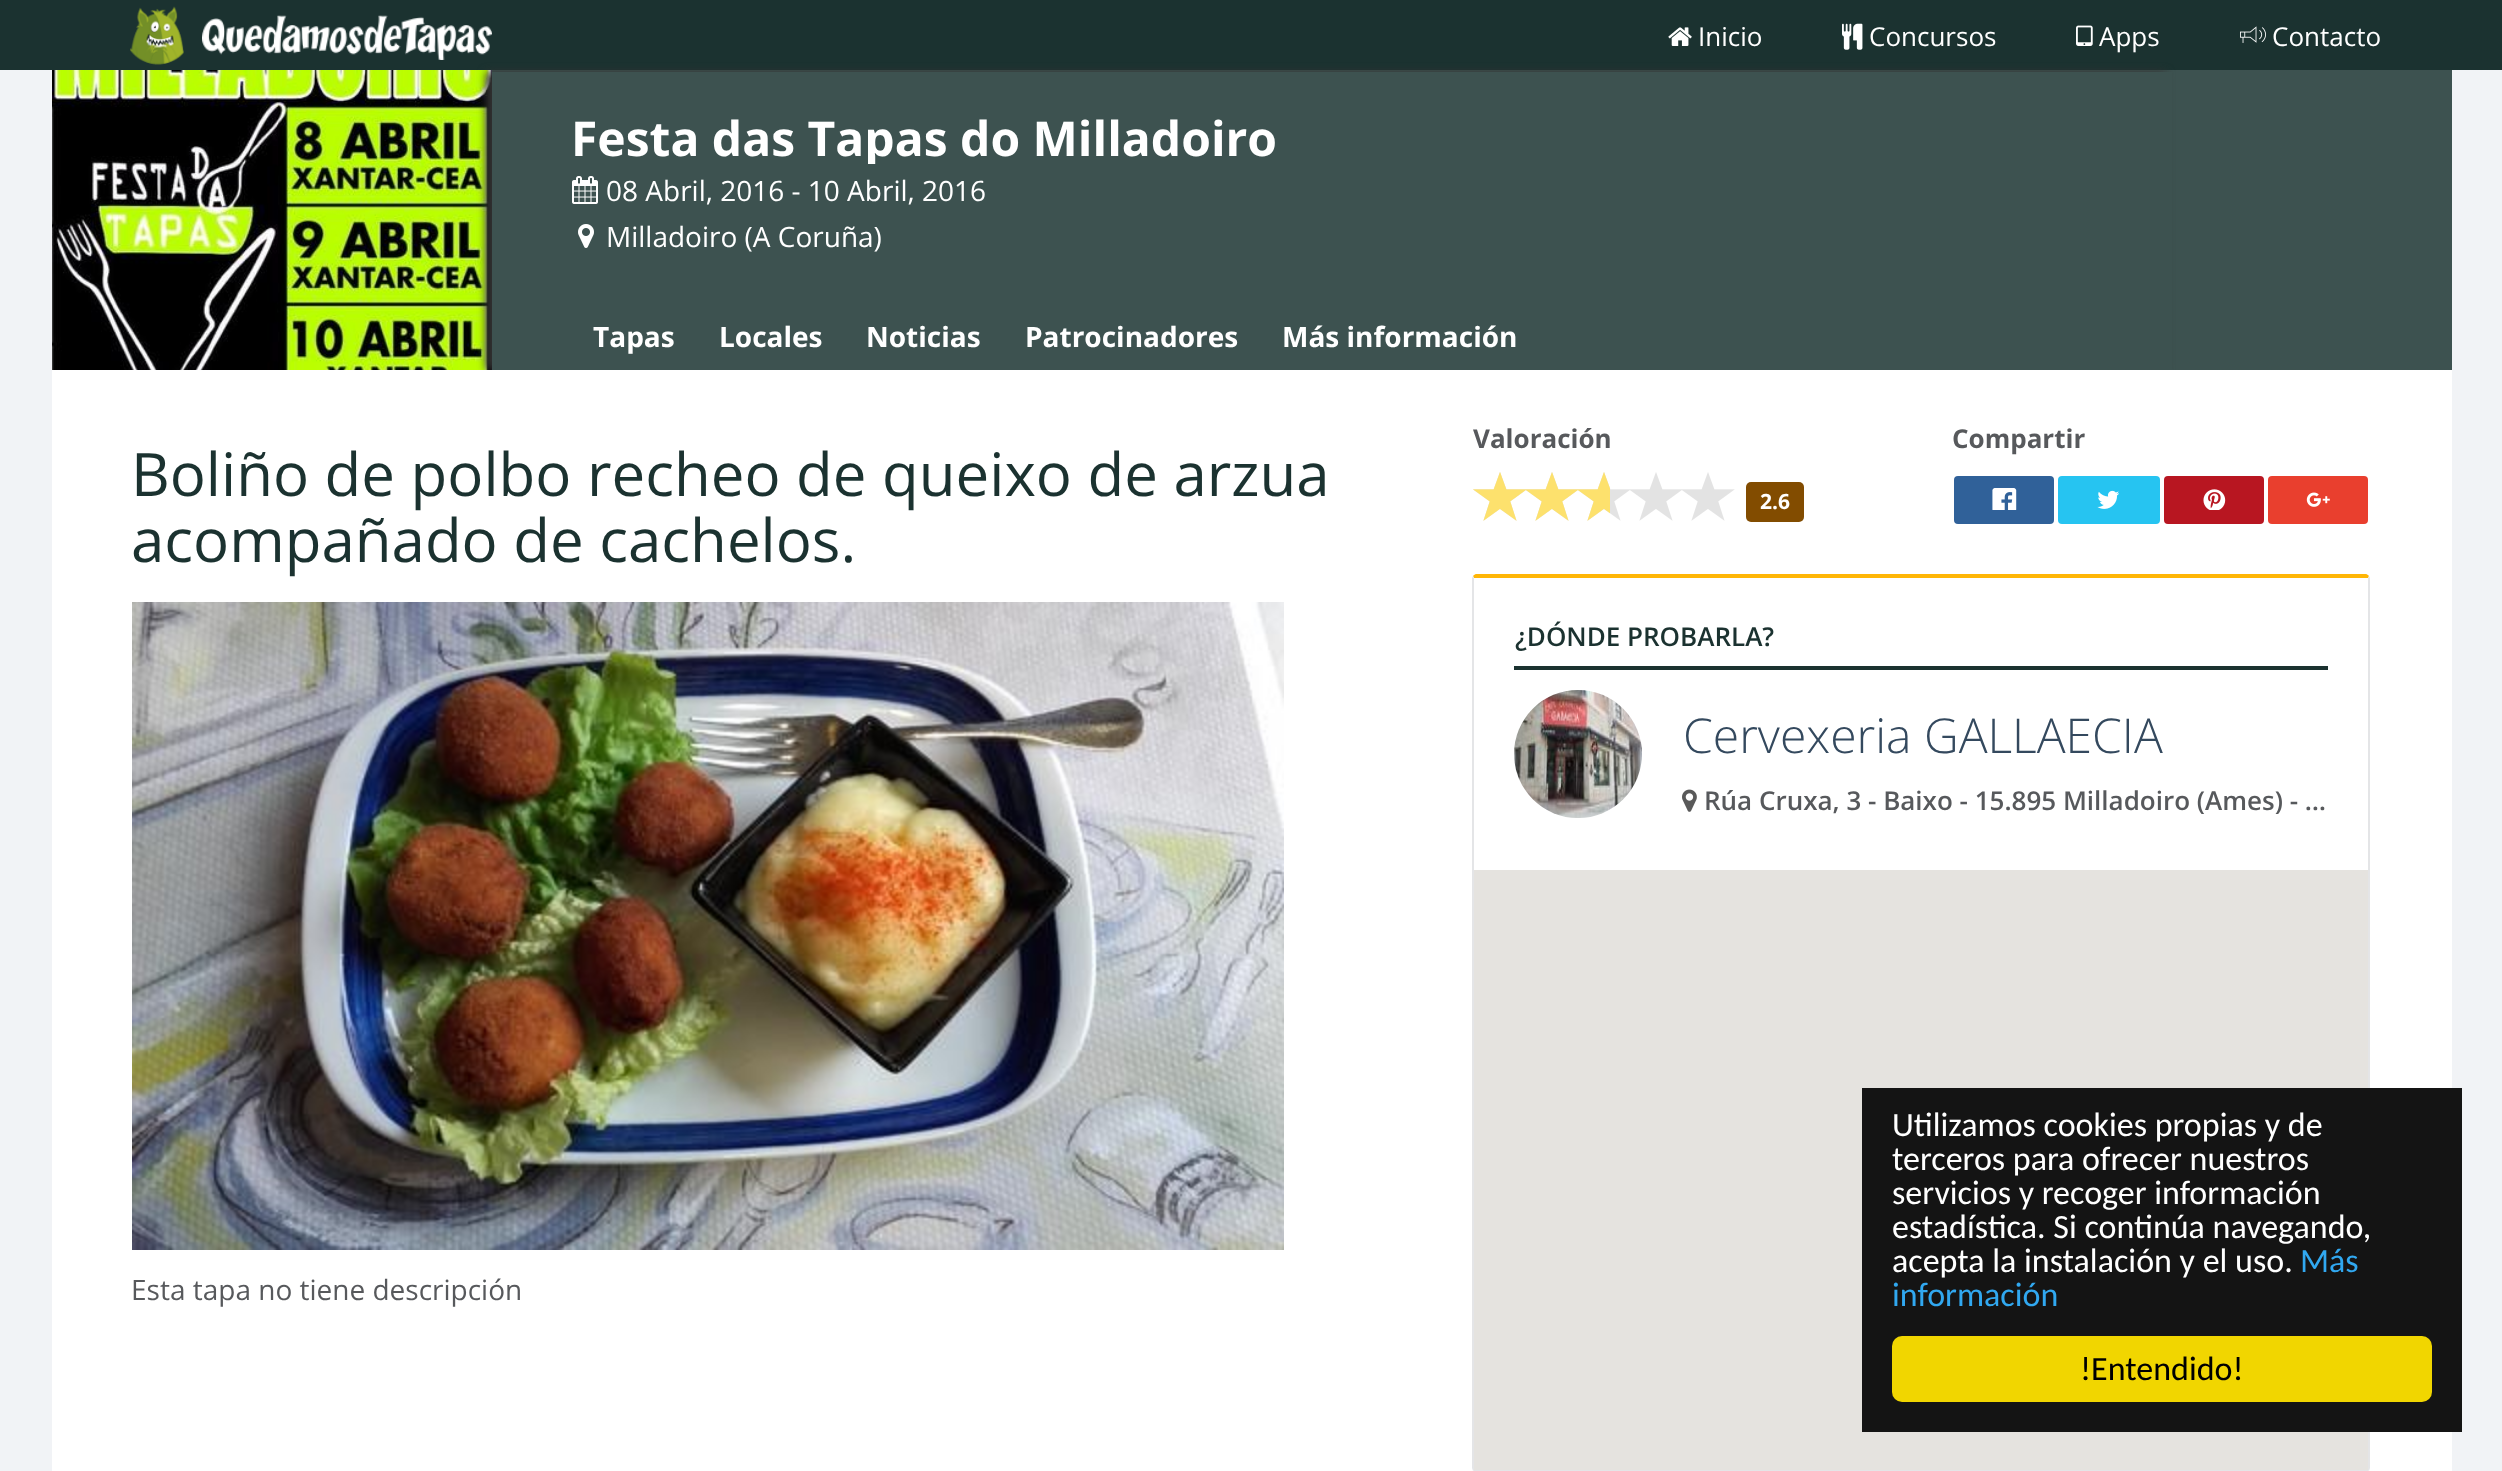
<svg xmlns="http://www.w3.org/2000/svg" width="2502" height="1471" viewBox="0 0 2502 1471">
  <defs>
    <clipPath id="clip1"><path d="M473 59H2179V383H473ZM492 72H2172V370H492Z" clip-rule="evenodd"/></clipPath>
    <clipPath id="clip2"><rect x="572" y="112" width="1600" height="52"/></clipPath>
  </defs>
  <rect width="100%" height="100%" fill="rgb(241,243,246)"/>
  <rect x="0" y="0" width="2502" height="70" fill="rgb(27,50,48)"/>
  <image x="130" y="6" width="54" height="59" href="pic1.png"/>
  <image x="202" y="15" width="290" height="45" href="pic2.png"/>
  <image x="1668" y="27" width="24" height="19" href="pic3.png"/>
  <text x="1698" y="46" font-family="Open Sans" font-size="26" fill="rgb(255,255,255)">Inicio</text>
  <image x="1842" y="23" width="21" height="27" href="pic4.png"/>
  <text x="1869" y="46" font-family="Open Sans" font-size="26" fill="rgb(255,255,255)">Concursos</text>
  <image x="2076" y="25" width="17" height="21" href="pic5.png"/>
  <text x="2099" y="46" font-family="Open Sans" font-size="26" fill="rgb(255,255,255)">Apps</text>
  <image x="2240" y="26" width="26" height="17" href="pic6.png"/>
  <text x="2272" y="46" font-family="Open Sans" font-size="26" fill="rgb(255,255,255)">Contacto</text>
  <rect x="492" y="70" width="1960" height="300" fill="rgb(61,82,80)"/>
  <image x="52" y="70" width="440" height="300" href="pic7.png"/>
  <g clip-path="url(#clip1)">
    <rect x="486" y="72" width="1680" height="298" fill="rgb(51,51,51)" filter="blur(4px)"/>
  </g>
  <g clip-path="url(#clip2)">
    <text x="571" y="156" font-family="Open Sans" font-size="48" font-weight="bold" fill="rgb(255,255,255)">Festa das Tapas do Milladoiro</text>
  </g>
  <image x="572" y="176" width="26" height="28" href="pic8.png"/>
  <text x="606" y="201" font-family="Open Sans" font-size="28" fill="rgb(255,255,255)">08 Abril, 2016 - 10 Abril, 2016</text>
  <image x="578" y="224" width="16" height="24" href="pic9.png"/>
  <text x="606" y="247" font-family="Open Sans" font-size="28" fill="rgb(255,255,255)">Milladoiro (A Coruña)</text>
  <g font-family="Open Sans" font-size="28" font-weight="bold" fill="rgb(255,255,255)">
    <text x="593" y="347">Tapas</text>
    <text x="719" y="347">Locales</text>
    <text x="866" y="347">Noticias</text>
    <text x="1025" y="347">Patrocinadores</text>
    <text x="1282" y="347">Más información</text>
  </g>
  <rect x="52" y="370" width="2400" height="1101" fill="rgb(255,255,255)"/>
  <g font-family="Open Sans" font-size="60" fill="rgb(27,50,48)">
    <text>
      <tspan x="131" y="496">Boliño de polbo recheo de queixo de arzua</tspan>
      <tspan x="131" y="562">acompañado de cachelos.</tspan>
    </text>
  </g>
  <image x="132" y="602" width="1152" height="648" href="pic10.png"/>
  <text x="131" y="1300" font-family="Open Sans" font-size="28" fill="rgb(87,89,92)">Esta tapa no tiene descripción</text>
  <text x="1473" y="448" font-family="Open Sans" font-size="26" font-weight="bold" fill="rgb(87,89,92)">Valoración</text>
  <image x="1473" y="472" width="262" height="49" href="pic11.png"/>
  <image x="1473" y="472" width="137" height="49" href="pic12.png"/>
  <rect x="1746" y="482" width="58" height="40" rx="5" fill="rgb(130,76,0)"/>
  <text x="1760" y="509" font-family="Open Sans" font-size="21" font-weight="bold" fill="rgb(255,255,255)">2.6</text>
  <text x="1952" y="448" font-family="Open Sans" font-size="26" font-weight="bold" fill="rgb(87,89,92)">Compartir</text>
  <rect x="1954" y="476" width="100" height="48" rx="4" fill="rgb(48,97,153)"/>
  <image x="1992" y="488" width="25" height="22" href="pic13.png"/>
  <rect x="2058" y="476" width="102" height="48" rx="4" fill="rgb(38,196,241)"/>
  <image x="2097" y="490" width="22" height="19" href="pic14.png"/>
  <rect x="2164" y="476" width="100" height="48" rx="4" fill="rgb(184,22,33)"/>
  <image x="2203" y="489" width="23" height="21" href="pic15.png"/>
  <rect x="2268" y="476" width="100" height="48" rx="4" fill="rgb(233,63,46)"/>
  <image x="2306" y="492" width="24" height="15" href="pic16.png"/>
  <path d="M1476 574C1475 574 1474 575 1473 576L1474 578H2368L2369 576C2368 575 2367 574 2366 574Z" fill="rgb(255,182,6)"/>
  <path d="M2370 1468V578L2369 576L2368 578V1468L2367 1469L2369 1471Z" fill="rgb(228,229,231)"/>
  <path d="M1476 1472H2366L2369 1471L2367 1469L2366 1470H1476L1475 1469L1473 1471Z" fill="rgb(228,229,231)"/>
  <path d="M1472 578V1468L1473 1471L1475 1469L1474 1468V578L1473 576Z" fill="rgb(228,229,231)"/>
  <rect x="1514" y="666" width="814" height="4" fill="rgb(27,50,48)"/>
  <text x="1515" y="646" font-family="Open Sans" font-size="26" font-weight="600" fill="rgb(27,50,48)">¿DÓNDE PROBARLA?</text>
  <image x="1514" y="690" width="128" height="128" href="pic17.png"/>
  <text x="1683" y="753" font-family="Open Sans" font-size="48" font-weight="300" fill="rgb(52,73,94)">Cervexeria GALLAECIA</text>
  <image x="1682" y="789" width="15" height="23" href="pic18.png"/>
  <text x="1704" y="810" font-family="Open Sans" font-size="26" font-weight="600" fill="rgb(87,89,92)">Rúa Cruxa, 3 - Baixo - 15.895 Milladoiro (Ames) - …</text>
  <rect x="1474" y="870" width="894" height="600" fill="rgb(229,227,223)"/>
  <rect x="1862" y="1088" width="600" height="344" fill="rgb(20,20,20)"/>
  <g font-family="Carlito" font-size="34" fill="rgb(255,255,255)">
    <text>
      <tspan x="1892" y="1136">Utilizamos cookies propias y de</tspan>
      <tspan x="1892" y="1170">terceros para ofrecer nuestros</tspan>
      <tspan x="1892" y="1204">servicios y recoger información</tspan>
      <tspan x="1892" y="1238">estadística. Si continúa navegando,</tspan>
      <tspan x="1892" y="1272">acepta la instalación y el uso.</tspan>
    </text>
  </g>
  <g font-family="Carlito" font-size="34" fill="rgb(49,168,240)">
    <text x="2300" y="1272">Más</text>
    <text x="1892" y="1306">información</text>
  </g>
  <rect x="1892" y="1336" width="540" height="66" rx="10" fill="rgb(241,214,0)"/>
  <text x="2080" y="1380" font-family="Carlito" font-size="34" fill="rgb(0,0,0)">!Entendido!</text>
</svg>
